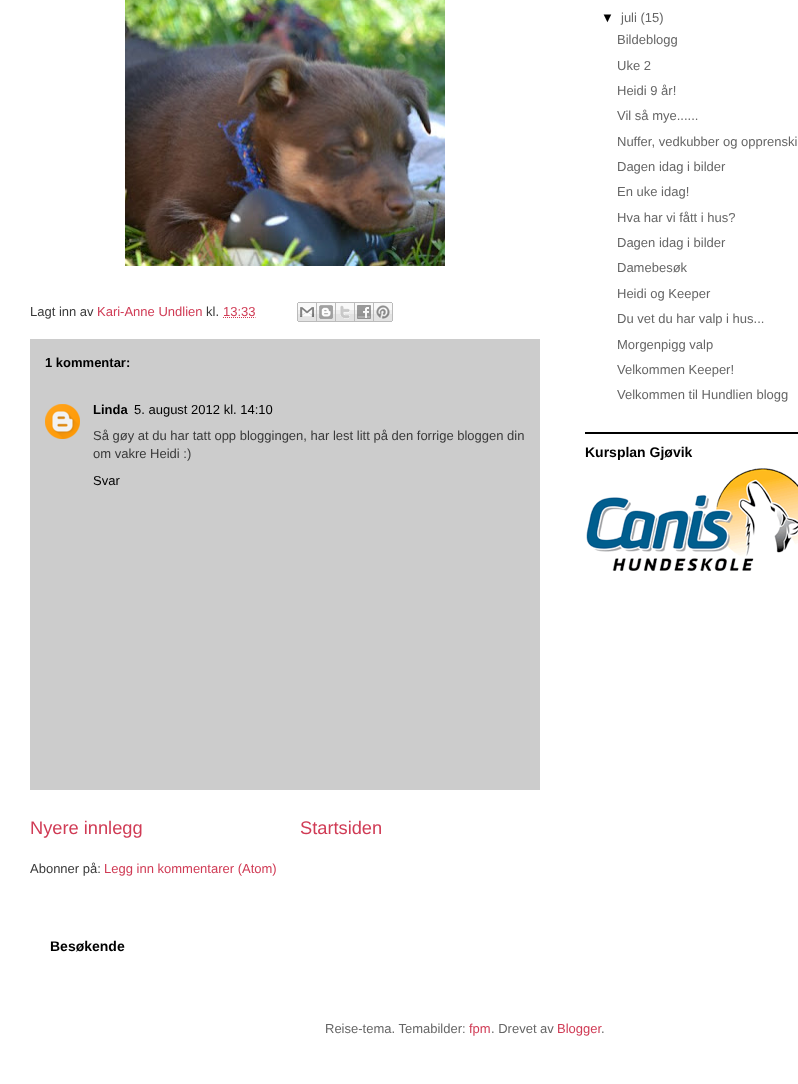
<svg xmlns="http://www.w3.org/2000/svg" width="798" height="1084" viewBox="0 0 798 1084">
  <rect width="100%" height="100%" fill="rgb(255,255,255)"/>
  <rect x="585" y="432" width="213" height="2" fill="rgb(0,0,0)"/>
  <text x="601" y="22" font-family="Liberation Sans" font-size="13" fill="rgb(0,0,0)">▼</text>
  <g font-family="Liberation Sans" font-size="13" fill="rgb(102,102,102)">
    <text x="621" y="22">juli (15)</text>
    <text x="617" y="44">Bildeblogg</text>
    <text>
      <tspan x="617" y="70">Uke 2</tspan>
      <tspan x="617" y="95">Heidi 9 år!</tspan>
      <tspan x="617" y="120">Vil så mye......</tspan>
    </text>
    <text>
      <tspan x="617" y="146">Nuffer, vedkubber og opprenski</tspan>
      <tspan x="617" y="171">Dagen idag i bilder</tspan>
      <tspan x="617" y="196">En uke idag!</tspan>
    </text>
    <text>
      <tspan x="617" y="222">Hva har vi fått i hus?</tspan>
      <tspan x="617" y="247">Dagen idag i bilder</tspan>
      <tspan x="617" y="272">Damebesøk</tspan>
    </text>
    <text>
      <tspan x="617" y="298">Heidi og Keeper</tspan>
      <tspan x="617" y="323">Du vet du har valp i hus...</tspan>
    </text>
    <text>
      <tspan x="617" y="349">Morgenpigg valp</tspan>
      <tspan x="617" y="374">Velkommen Keeper!</tspan>
      <tspan x="617" y="399">Velkommen til Hundlien blogg</tspan>
    </text>
  </g>
  <text x="585" y="457" font-family="Liberation Sans" font-size="14" font-weight="bold" fill="rgb(0,0,0)">Kursplan Gjøvik</text>
  <image x="586" y="468" width="212" height="103" href="pic1.png"/>
  <image x="125" y="0" width="320" height="266" href="pic2.png"/>
  <text x="30" y="316" font-family="Liberation Sans" font-size="13" fill="rgb(57,57,57)">Lagt inn av</text>
  <text x="97" y="316" font-family="Liberation Sans" font-size="13" fill="rgb(208,59,85)">Kari-Anne Undlien</text>
  <text x="206" y="316" font-family="Liberation Sans" font-size="13" fill="rgb(57,57,57)">kl.</text>
  <text x="223" y="316" font-family="Liberation Sans" font-size="13" fill="rgb(208,59,85)">13:33</text>
  <path d="M223 317.5H255.5" fill="none" stroke="rgb(208,59,85)" stroke-dasharray="1 1"/>
  <image x="297" y="302" width="20" height="20" href="pic3.png"/>
  <image x="317" y="302" width="19" height="20" href="pic4.png"/>
  <image x="336" y="302" width="19" height="20" href="pic5.png"/>
  <image x="355" y="302" width="19" height="20" href="pic6.png"/>
  <image x="374" y="302" width="19" height="20" href="pic7.png"/>
  <rect x="30" y="339" width="510" height="451" fill="rgb(204,204,204)"/>
  <text x="45" y="367" font-family="Liberation Sans" font-size="13" font-weight="bold" fill="rgb(0,0,0)">1 kommentar:</text>
  <image x="45" y="404" width="35" height="35" href="pic8.png"/>
  <text x="93" y="414" font-family="Liberation Sans" font-size="13" font-weight="bold" fill="rgb(0,0,0)">Linda</text>
  <text x="134" y="414" font-family="Liberation Sans" font-size="13" fill="rgb(0,0,0)">5. august 2012 kl. 14:10</text>
  <g font-family="Liberation Sans" font-size="13" fill="rgb(57,57,57)">
    <text>
      <tspan x="93" y="440">Så gøy at du har tatt opp bloggingen, har lest litt på den forrige bloggen din</tspan>
      <tspan x="93" y="458">om vakre Heidi :)</tspan>
    </text>
  </g>
  <text x="93" y="485" font-family="Liberation Sans" font-size="13" fill="rgb(0,0,0)">Svar</text>
  <g font-family="Liberation Sans" font-size="18.25" fill="rgb(208,59,85)">
    <text x="30" y="834">Nyere innlegg</text>
    <text x="300" y="834">Startsiden</text>
  </g>
  <text x="30" y="873" font-family="Liberation Sans" font-size="13" fill="rgb(57,57,57)">Abonner på:</text>
  <text x="104" y="873" font-family="Liberation Sans" font-size="13" fill="rgb(208,59,85)">Legg inn kommentarer (Atom)</text>
  <text x="50" y="951" font-family="Liberation Sans" font-size="14" font-weight="bold" fill="rgb(0,0,0)">Besøkende</text>
  <text x="325" y="1033" font-family="Liberation Sans" font-size="13" fill="rgb(102,102,102)">Reise-tema. Temabilder:</text>
  <text x="469" y="1033" font-family="Liberation Sans" font-size="13" fill="rgb(208,59,85)">fpm</text>
  <text x="491" y="1033" font-family="Liberation Sans" font-size="13" fill="rgb(102,102,102)">. Drevet av</text>
  <text x="557" y="1033" font-family="Liberation Sans" font-size="13" fill="rgb(208,59,85)">Blogger</text>
  <text x="601" y="1033" font-family="Liberation Sans" font-size="13" fill="rgb(102,102,102)">.</text>
</svg>
